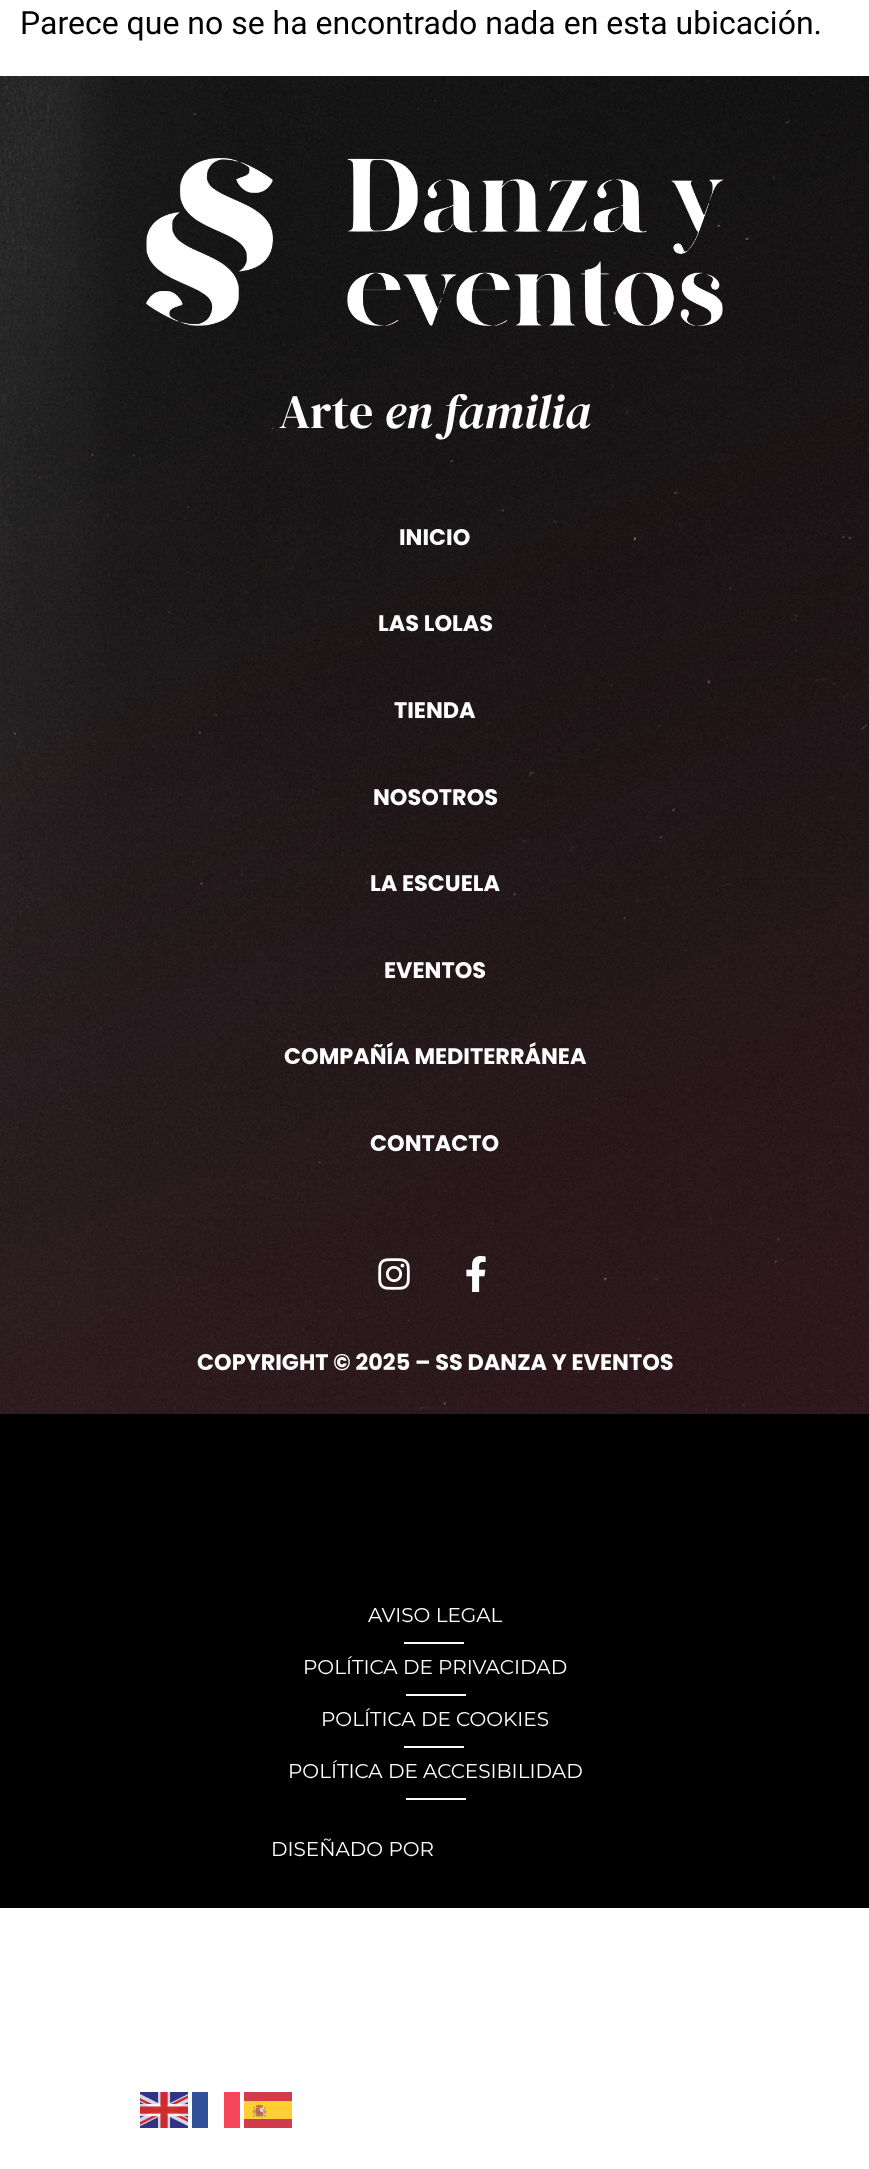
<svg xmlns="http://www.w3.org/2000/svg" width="869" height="2169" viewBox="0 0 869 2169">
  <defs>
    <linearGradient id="g1" gradientUnits="userSpaceOnUse" x1="128" y1="22" x2="742" y2="1468"><stop offset="0.2" stop-color="rgb(27,27,27)"/><stop offset="1" stop-color="rgb(96,40,54)"/></linearGradient>
  </defs>
  <rect width="100%" height="100%" fill="rgb(255,255,255)"/>
  <text x="20" y="34" font-family="Roboto" font-size="32" fill="rgb(0,0,0)">Parece que no se ha encontrado nada en esta ubicación.</text>
  <rect x="0" y="76" width="869" height="1338" fill="url(#g1)"/>
  <image x="0" y="76" width="869" height="1338" href="pic1.png"/>
  <image x="146" y="158" width="578" height="168" href="pic2.png"/>
  <text x="279" y="428" font-family="DM Serif Display" font-size="48" fill="rgb(255,255,255)">Arte</text>
  <text x="384" y="428" font-family="DM Serif Display" font-size="48" font-style="italic" fill="rgb(255,255,255)">en familia</text>
  <g font-family="Poppins" font-size="22.4" font-weight="bold" fill="rgb(255,255,255)">
    <text x="399" y="545">INICIO</text>
    <text x="378" y="631">LAS LOLAS</text>
    <text x="394" y="718">TIENDA</text>
    <text x="373" y="805">NOSOTROS</text>
    <text x="370" y="891">LA ESCUELA</text>
    <text x="384" y="978">EVENTOS</text>
    <text x="284" y="1064">COMPAÑÍA MEDITERRÁNEA</text>
    <text x="370" y="1151">CONTACTO</text>
  </g>
  <image x="378" y="1258" width="32" height="32" href="pic3.png"/>
  <image x="466" y="1256" width="20" height="36" href="pic4.png"/>
  <text x="197" y="1370" font-family="Poppins" font-size="22.4" font-weight="bold" fill="rgb(255,255,255)">COPYRIGHT © 2025 – SS DANZA Y EVENTOS</text>
  <rect x="0" y="1414" width="869" height="494" fill="rgb(0,0,0)"/>
  <text x="368" y="1622" font-family="Montserrat" font-size="20" fill="rgb(255,255,255)">AVISO LEGAL</text>
  <rect x="404" y="1642" width="60" height="2" fill="rgb(250,250,250)"/>
  <text x="303" y="1674" font-family="Montserrat" font-size="20" fill="rgb(255,255,255)">POLÍTICA DE PRIVACIDAD</text>
  <rect x="406" y="1694" width="60" height="2" fill="rgb(250,250,250)"/>
  <text x="321" y="1726" font-family="Montserrat" font-size="20" fill="rgb(255,255,255)">POLÍTICA DE COOKIES</text>
  <rect x="404" y="1746" width="60" height="2" fill="rgb(250,250,250)"/>
  <text x="288" y="1778" font-family="Montserrat" font-size="20" fill="rgb(255,255,255)">POLÍTICA DE ACCESIBILIDAD</text>
  <rect x="406" y="1798" width="60" height="2" fill="rgb(250,250,250)"/>
  <text x="271" y="1856" font-family="Montserrat" font-size="20" fill="rgb(255,255,255)">DISEÑADO POR</text>
  <image x="140" y="2092" width="48" height="36" href="pic5.png"/>
  <rect x="192" y="2092" width="16" height="36" fill="rgb(51,81,153)"/>
  <rect x="224" y="2092" width="16" height="36" fill="rgb(245,70,89)"/>
  <image x="244" y="2092" width="48" height="36" href="pic6.png"/>
</svg>
